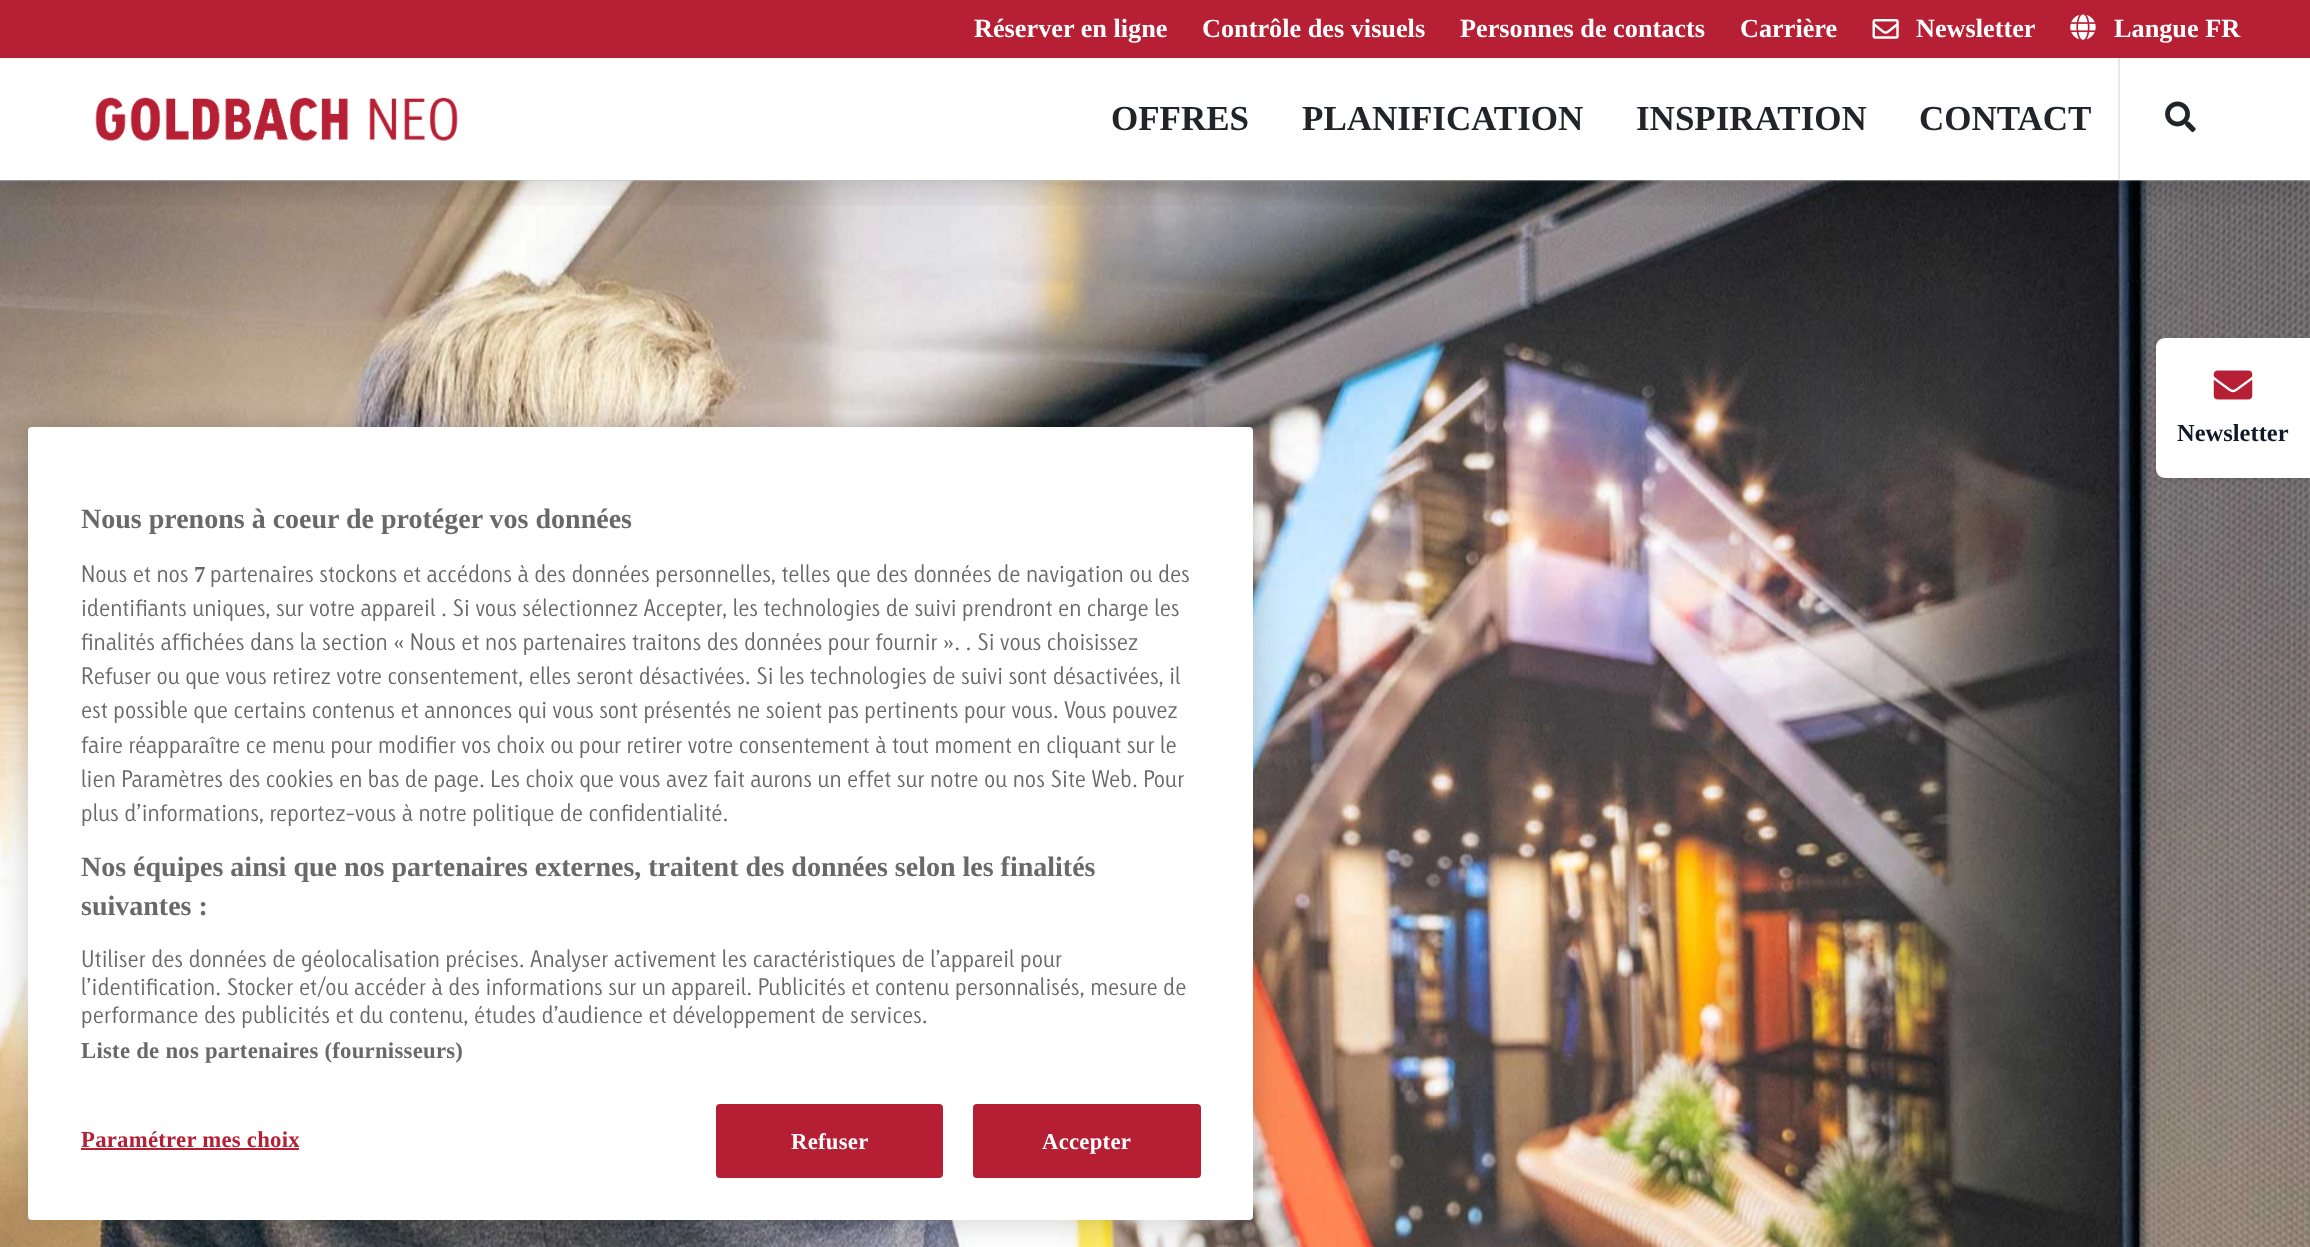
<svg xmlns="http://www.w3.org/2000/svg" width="2310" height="1247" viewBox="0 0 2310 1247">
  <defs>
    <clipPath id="clip1"><rect x="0" y="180" width="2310" height="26"/></clipPath>
  </defs>
  <rect width="100%" height="100%" fill="rgb(255,255,255)"/>
  <rect x="0" y="180" width="2310" height="2" fill="rgb(209,213,219)"/>
  <image x="0" y="180" width="2310" height="1067" href="pic5.png"/>
  <g clip-path="url(#clip1)">
    <rect x="0" y="63" width="2310" height="123" fill="rgba(0,0,0,0.16)" filter="blur(17.5px)"/>
  </g>
  <rect x="0" y="0" width="2310" height="58" fill="rgb(182,31,52)"/>
  <g font-family="Liberation Serif" font-size="26.25" font-weight="bold" fill="rgb(255,255,255)">
    <text x="974" y="37">Réserver en ligne</text>
    <text x="1202" y="37">Contrôle des visuels</text>
    <text x="1460" y="37">Personnes de contacts</text>
    <text x="1740" y="37">Carrière</text>
  </g>
  <image x="1872" y="19" width="27" height="20" href="pic1.png"/>
  <text x="1916" y="37" font-family="Liberation Serif" font-size="26.25" font-weight="bold" fill="rgb(255,255,255)">Newsletter</text>
  <image x="2070" y="14" width="26" height="26" href="pic2.png"/>
  <text x="2114" y="37" font-family="Liberation Serif" font-size="26.25" font-weight="bold" fill="rgb(255,255,255)">Langue FR</text>
  <image x="95" y="97" width="363" height="45" href="pic3.png"/>
  <g font-family="Liberation Serif" font-size="35" font-weight="bold" fill="rgb(33,37,41)">
    <text x="1111" y="130">OFFRES</text>
    <text x="1302" y="130">PLANIFICATION</text>
    <text x="1636" y="130">INSPIRATION</text>
    <text x="1919" y="130">CONTACT</text>
  </g>
  <rect x="2118" y="58" width="2" height="122" fill="rgb(231,231,231)"/>
  <image x="2165" y="101" width="31" height="32" href="pic4.png"/>
  <rect x="2156" y="340" width="154" height="140" rx="9" fill="rgba(0,0,0,0.1)" filter="blur(2.5px)"/>
  <path d="M2165 338H2310V478H2165C2160 478 2156 474 2156 469V347C2156 342 2160 338 2165 338Z" fill="rgb(255,255,255)"/>
  <image x="2213" y="370" width="40" height="30" href="pic6.png"/>
  <text x="2177" y="441" font-family="Liberation Serif" font-size="24.5" font-weight="bold" fill="rgb(17,24,39)">Newsletter</text>
  <rect x="28" y="427" width="1225" height="793" rx="4" fill="rgba(0,0,0,0.2)" filter="blur(16px)"/>
  <rect x="28" y="427" width="1225" height="793" rx="4" fill="rgb(255,255,255)"/>
  <text x="81" y="528" font-family="Liberation Serif" font-size="28" font-weight="bold" fill="rgb(105,105,105)">Nous prenons à coeur de protéger vos données</text>
  <text x="81" y="582" font-family="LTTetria" font-size="22.75" font-weight="300" fill="rgb(105,105,105)">Nous et nos</text>
  <text x="194" y="582" font-family="Liberation Serif" font-size="22.75" font-weight="bold" fill="rgb(105,105,105)">7</text>
  <g font-family="LTTetria" font-size="22.75" font-weight="300" fill="rgb(105,105,105)">
    <text x="210" y="582">partenaires stockons et accédons à des données personnelles, telles que des données de navigation ou des</text>
    <text>
      <tspan x="81" y="616">identifiants uniques, sur votre appareil . Si vous sélectionnez Accepter, les technologies de suivi prendront en charge les</tspan>
      <tspan x="81" y="650">finalités affichées dans la section « Nous et nos partenaires traitons des données pour fournir ». . Si vous choisissez</tspan>
      <tspan x="81" y="684">Refuser ou que vous retirez votre consentement, elles seront désactivées.</tspan>
    </text>
    <text x="756" y="684">Si les technologies de suivi sont désactivées, il</text>
    <text>
      <tspan x="81" y="718">est possible que certains contenus et annonces qui vous sont présentés ne soient pas pertinents pour vous. Vous pouvez</tspan>
      <tspan x="81" y="753">faire réapparaître ce menu pour modifier vos choix ou pour retirer votre consentement à tout moment en cliquant sur le</tspan>
      <tspan x="81" y="787">lien Paramètres des cookies en bas de page. Les choix que vous avez fait aurons un effet sur notre ou nos Site Web. Pour</tspan>
      <tspan x="81" y="821">plus d’informations, reportez-vous à notre politique de confidentialité.</tspan>
    </text>
  </g>
  <g font-family="Liberation Serif" font-size="28" font-weight="bold" fill="rgb(105,105,105)">
    <text>
      <tspan x="81" y="876">Nos équipes ainsi que nos partenaires externes, traitent des données selon les finalités</tspan>
      <tspan x="81" y="915">suivantes :</tspan>
    </text>
  </g>
  <g font-family="LTTetria" font-size="22.75" font-weight="300" fill="rgb(105,105,105)">
    <text>
      <tspan x="81" y="967">Utiliser des données de géolocalisation précises. Analyser activement les caractéristiques de l’appareil pour</tspan>
      <tspan x="81" y="995">l’identification. Stocker et/ou accéder à des informations sur un appareil. Publicités et contenu personnalisés, mesure de</tspan>
      <tspan x="81" y="1023">performance des publicités et du contenu, études d’audience et développement de services.</tspan>
    </text>
  </g>
  <text x="81" y="1058" font-family="Liberation Serif" font-size="22.75" font-weight="bold" letter-spacing="0.25" fill="rgb(105,105,105)">Liste de nos partenaires (fournisseurs)</text>
  <text x="81" y="1147" font-family="Liberation Serif" font-size="22.75" font-weight="bold" letter-spacing="0.25" fill="rgb(182,30,52)">Paramétrer mes choix</text>
  <rect x="81" y="1148" width="218" height="2" fill="rgb(182,30,52)"/>
  <rect x="717" y="1105" width="225" height="72" rx="3" fill="rgb(182,30,52)" stroke="rgb(182,30,52)" stroke-width="2"/>
  <text x="791" y="1149" font-family="Liberation Serif" font-size="22.75" font-weight="bold" letter-spacing="0.25" fill="rgb(255,255,255)">Refuser</text>
  <rect x="974" y="1105" width="226" height="72" rx="3" fill="rgb(182,30,52)" stroke="rgb(182,30,52)" stroke-width="2"/>
  <text x="1042" y="1149" font-family="Liberation Serif" font-size="22.75" font-weight="bold" letter-spacing="0.25" fill="rgb(255,255,255)">Accepter</text>
</svg>
